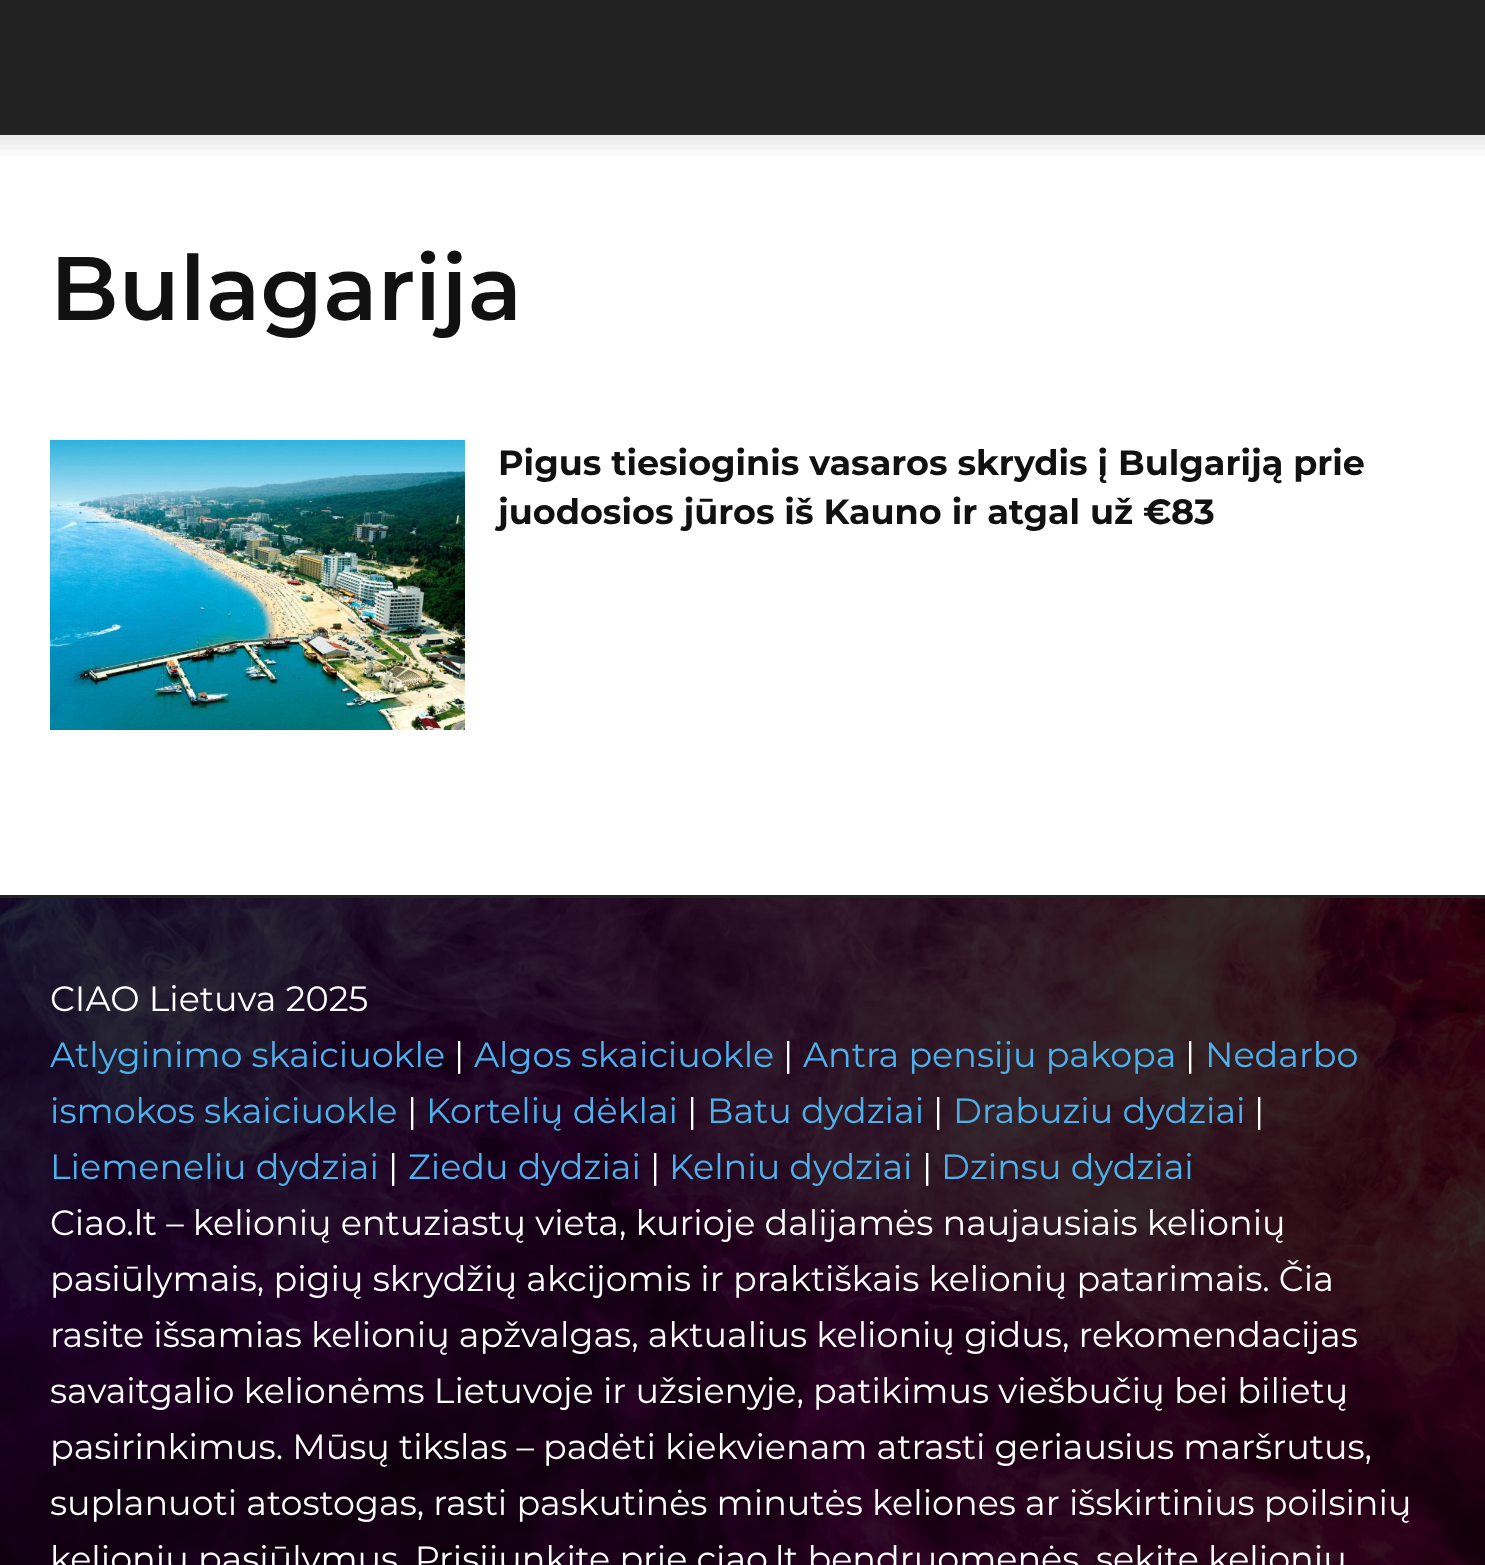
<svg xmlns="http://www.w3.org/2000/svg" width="1485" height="1565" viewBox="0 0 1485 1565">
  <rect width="100%" height="100%" fill="rgb(255,255,255)"/>
  <rect x="0" y="0" width="1485" height="135" fill="rgb(34,34,34)"/>
  <image x="0" y="135" width="1485" height="21" href="pic1.png"/>
  <text x="50" y="320" font-family="Montserrat" font-size="90" font-weight="600" fill="rgb(17,17,17)">Bulagarija</text>
  <image x="50" y="440" width="415" height="290" href="pic2.png"/>
  <g font-family="Montserrat" font-size="35" font-weight="bold" fill="rgb(17,17,17)">
    <text>
      <tspan x="498" y="475">Pigus tiesioginis vasaros skrydis į Bulgariją prie</tspan>
      <tspan x="498" y="524">juodosios jūros iš Kauno ir atgal už €83</tspan>
    </text>
  </g>
  <image x="0" y="898" width="1485" height="667" href="pic3.png"/>
  <rect x="0" y="895" width="1485" height="3" fill="rgb(34,34,34)"/>
  <text x="50" y="1011" font-family="Montserrat" font-size="35" fill="rgb(255,255,255)">CIAO Lietuva 2025</text>
  <text x="50" y="1067" font-family="Montserrat" font-size="35" fill="rgb(77,178,236)">Atlyginimo skaiciuokle</text>
  <text x="454" y="1067" font-family="Montserrat" font-size="35" fill="rgb(255,255,255)">|</text>
  <text x="474" y="1067" font-family="Montserrat" font-size="35" fill="rgb(77,178,236)">Algos skaiciuokle</text>
  <text x="783" y="1067" font-family="Montserrat" font-size="35" fill="rgb(255,255,255)">|</text>
  <text x="803" y="1067" font-family="Montserrat" font-size="35" fill="rgb(77,178,236)">Antra pensiju pakopa</text>
  <text x="1185" y="1067" font-family="Montserrat" font-size="35" fill="rgb(255,255,255)">|</text>
  <g font-family="Montserrat" font-size="35" fill="rgb(77,178,236)">
    <text x="1205" y="1067">Nedarbo</text>
    <text x="50" y="1123">ismokos skaiciuokle</text>
  </g>
  <text x="407" y="1123" font-family="Montserrat" font-size="35" fill="rgb(255,255,255)">|</text>
  <text x="426" y="1123" font-family="Montserrat" font-size="35" fill="rgb(77,178,236)">Kortelių dėklai</text>
  <text x="687" y="1123" font-family="Montserrat" font-size="35" fill="rgb(255,255,255)">|</text>
  <text x="707" y="1123" font-family="Montserrat" font-size="35" fill="rgb(77,178,236)">Batu dydziai</text>
  <text x="933" y="1123" font-family="Montserrat" font-size="35" fill="rgb(255,255,255)">|</text>
  <text x="953" y="1123" font-family="Montserrat" font-size="35" fill="rgb(77,178,236)">Drabuziu dydziai</text>
  <text x="1254" y="1123" font-family="Montserrat" font-size="35" fill="rgb(255,255,255)">|</text>
  <text x="50" y="1179" font-family="Montserrat" font-size="35" fill="rgb(77,178,236)">Liemeneliu dydziai</text>
  <text x="388" y="1179" font-family="Montserrat" font-size="35" fill="rgb(255,255,255)">|</text>
  <text x="408" y="1179" font-family="Montserrat" font-size="35" fill="rgb(77,178,236)">Ziedu dydziai</text>
  <text x="650" y="1179" font-family="Montserrat" font-size="35" fill="rgb(255,255,255)">|</text>
  <text x="669" y="1179" font-family="Montserrat" font-size="35" fill="rgb(77,178,236)">Kelniu dydziai</text>
  <text x="922" y="1179" font-family="Montserrat" font-size="35" fill="rgb(255,255,255)">|</text>
  <text x="941" y="1179" font-family="Montserrat" font-size="35" fill="rgb(77,178,236)">Dzinsu dydziai</text>
  <g font-family="Montserrat" font-size="35" fill="rgb(255,255,255)">
    <text>
      <tspan x="50" y="1235">Ciao.lt – kelionių entuziastų vieta, kurioje dalijamės naujausiais kelionių</tspan>
      <tspan x="50" y="1291">pasiūlymais, pigių skrydžių akcijomis ir praktiškais kelionių patarimais. Čia</tspan>
      <tspan x="50" y="1347">rasite išsamias kelionių apžvalgas, aktualius kelionių gidus, rekomendacijas</tspan>
      <tspan x="50" y="1403">savaitgalio kelionėms Lietuvoje ir užsienyje, patikimus viešbučių bei bilietų</tspan>
      <tspan x="50" y="1459">pasirinkimus. Mūsų tikslas – padėti kiekvienam atrasti geriausius maršrutus,</tspan>
      <tspan x="50" y="1515">suplanuoti atostogas, rasti paskutinės minutės keliones ar išskirtinius poilsinių</tspan>
      <tspan x="50" y="1571">kelionių pasiūlymus. Prisijunkite prie ciao.lt bendruomenės, sekite kelionių</tspan>
    </text>
  </g>
</svg>
